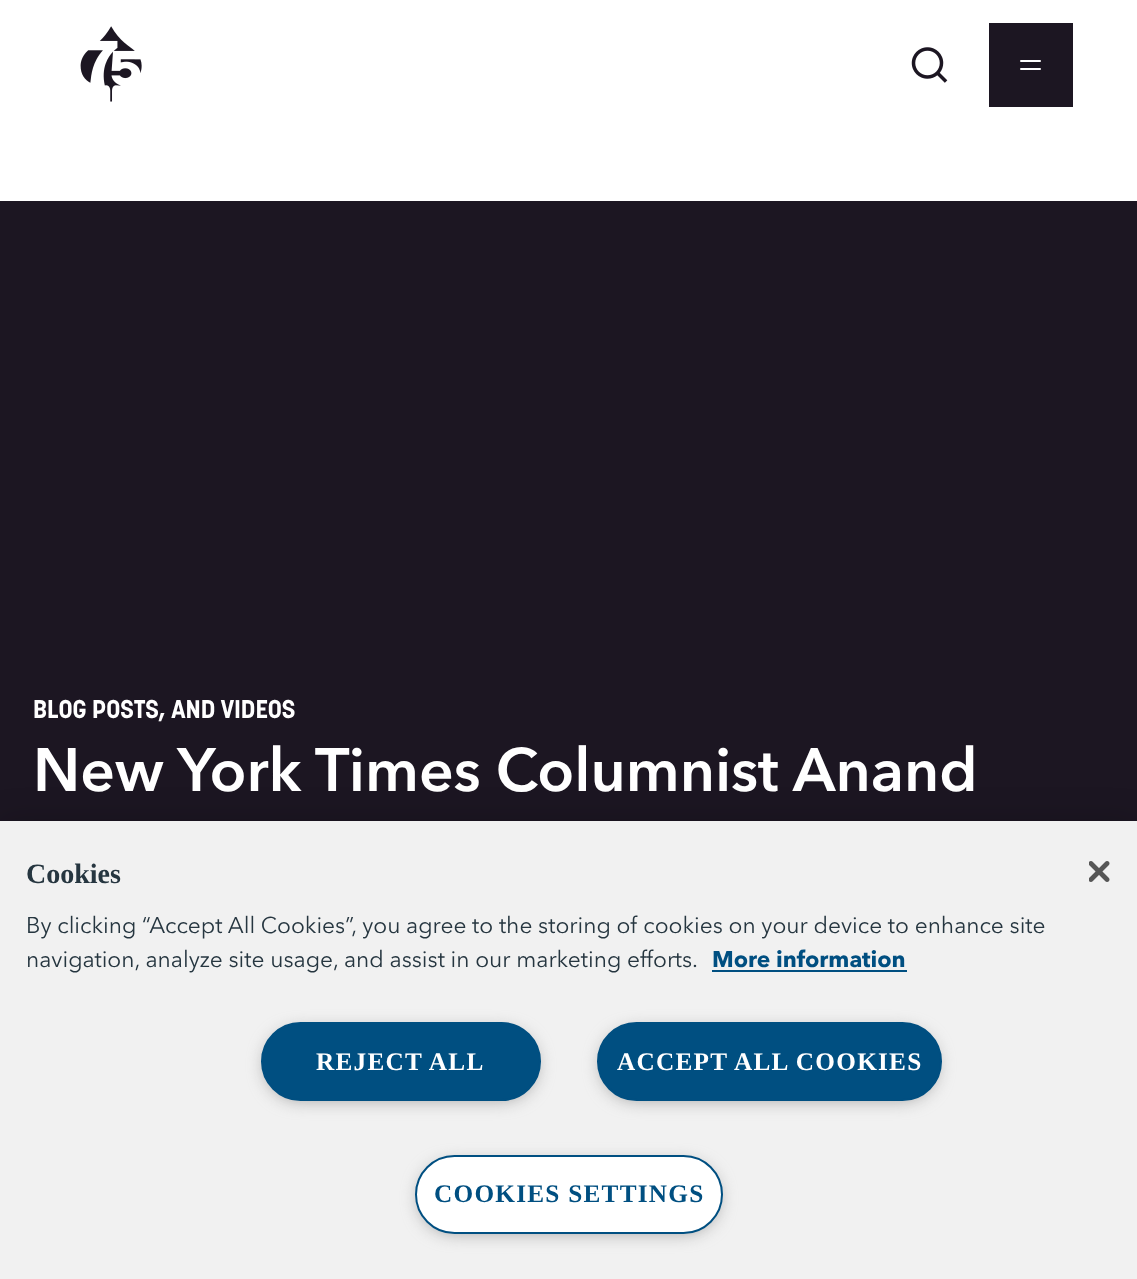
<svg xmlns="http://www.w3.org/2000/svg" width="1137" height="1279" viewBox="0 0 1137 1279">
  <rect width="100%" height="100%" fill="rgb(255,255,255)"/>
  <image x="80" y="26" width="62" height="76" href="pic1.png"/>
  <image x="911" y="47" width="37" height="36" href="pic2.png"/>
  <rect x="989" y="23" width="84" height="84" fill="rgb(28,22,34)"/>
  <rect x="1020" y="60" width="21" height="2" rx="1" fill="rgb(255,255,255)"/>
  <rect x="1020" y="68" width="21" height="2" rx="1" fill="rgb(255,255,255)"/>
  <rect x="0" y="201" width="1137" height="620" fill="rgb(28,22,34)"/>
  <text x="33" y="718" font-family="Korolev" font-size="25.4" font-weight="bold" fill="rgb(255,255,255)">BLOG POSTS, AND VIDEOS</text>
  <text x="33" y="791" font-family="Avenir Next" font-size="60.6" font-weight="600" fill="rgb(255,255,255)">New York Times Columnist Anand</text>
  <rect x="0" y="821" width="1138" height="458" fill="rgba(0,0,0,0.2)" filter="blur(16px)"/>
  <rect x="0" y="821" width="1137" height="458" fill="rgb(241,241,241)"/>
  <text x="26" y="883" font-family="Liberation Serif" font-size="28" font-weight="bold" fill="rgb(38,54,64)">Cookies</text>
  <g font-family="Avenir Next" font-size="22.75" fill="rgb(38,54,64)">
    <text>
      <tspan x="26" y="933">By clicking “Accept All Cookies”, you agree to the storing of cookies on your device to enhance site</tspan>
      <tspan x="26" y="967">navigation, analyze site usage, and assist in our marketing efforts.</tspan>
    </text>
  </g>
  <text x="712" y="967" font-family="Avenir Next" font-size="22.75" font-weight="bold" fill="rgb(0,79,129)">More information</text>
  <rect x="712" y="970" width="195" height="2" fill="rgb(0,79,129)"/>
  <rect x="266" y="1031" width="270" height="68" rx="34" fill="rgb(153,153,153)" filter="blur(9px)"/>
  <rect x="262" y="1023" width="278" height="77" rx="38.5" fill="rgb(0,79,129)" stroke="rgb(0,79,129)" stroke-width="2"/>
  <text x="316" y="1070" font-family="Liberation Serif" font-size="25.25" font-weight="bold" letter-spacing="1.25" fill="rgb(255,255,255)">REJECT ALL</text>
  <rect x="602" y="1031" width="334" height="68" rx="34" fill="rgb(153,153,153)" filter="blur(9px)"/>
  <rect x="598" y="1023" width="343" height="77" rx="38.5" fill="rgb(0,79,129)" stroke="rgb(0,79,129)" stroke-width="2"/>
  <text x="617" y="1070" font-family="Liberation Serif" font-size="25.25" font-weight="bold" letter-spacing="1.25" fill="rgb(255,255,255)">ACCEPT ALL COOKIES</text>
  <rect x="420" y="1164" width="298" height="68" rx="34" fill="rgb(153,153,153)" filter="blur(9px)"/>
  <rect x="416" y="1156" width="306" height="77" rx="38.5" fill="rgb(255,255,255)" stroke="rgb(0,79,129)" stroke-width="2"/>
  <text x="434" y="1202" font-family="Liberation Serif" font-size="25.25" font-weight="bold" letter-spacing="1.25" fill="rgb(0,79,129)">COOKIES SETTINGS</text>
  <image x="1089" y="861" width="21" height="21" href="pic3.png"/>
</svg>
